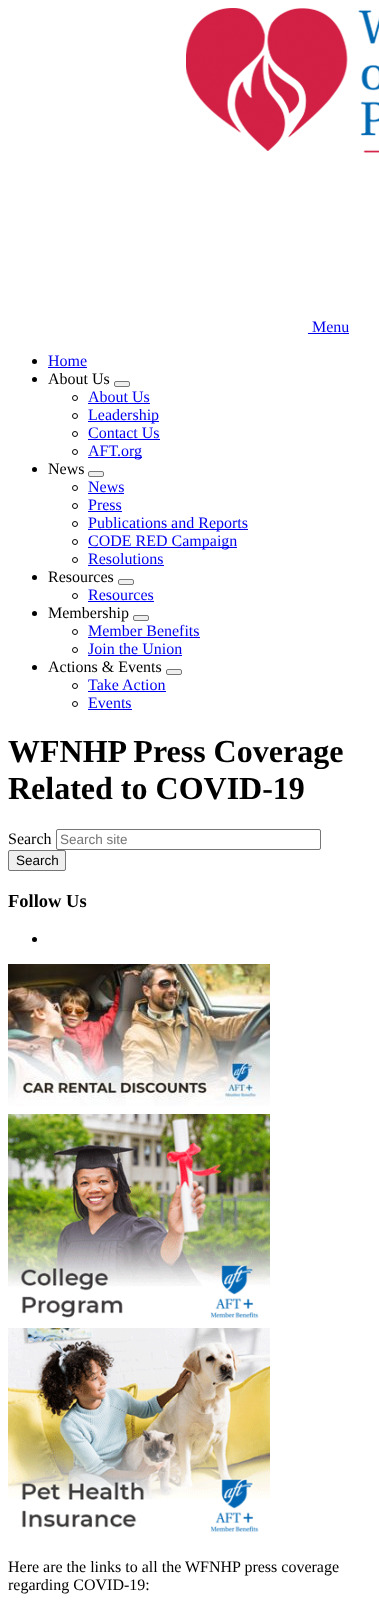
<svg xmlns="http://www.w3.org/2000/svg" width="379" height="1622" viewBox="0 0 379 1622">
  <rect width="100%" height="100%" fill="rgb(255,255,255)"/>
  <image x="186" y="8" width="193" height="145" href="pic1.png"/>
  <text x="312" y="332" font-family="Liberation Serif" font-size="16" fill="rgb(0,0,238)">Menu</text>
  <rect x="308" y="333" width="41" height="1" fill="rgb(0,0,238)"/>
  <circle cx="34.5" cy="361.5" r="2.5" fill="rgb(0,0,0)"/>
  <text x="48" y="366" font-family="Liberation Serif" font-size="16" fill="rgb(0,0,238)">Home</text>
  <rect x="48" y="367" width="39" height="1" fill="rgb(0,0,238)"/>
  <circle cx="34.5" cy="379.5" r="2.5" fill="rgb(0,0,0)"/>
  <text x="48" y="384" font-family="Liberation Serif" font-size="16" fill="rgb(0,0,0)">About Us</text>
  <rect x="114.5" y="381.5" width="15" height="5" rx="1.5" fill="rgb(239,239,239)" stroke="rgb(118,118,118)"/>
  <circle cx="75" cy="398" r="2.5" fill="none" stroke="rgb(0,0,0)"/>
  <text x="88" y="402" font-family="Liberation Serif" font-size="16" fill="rgb(0,0,238)">About Us</text>
  <rect x="88" y="403" width="62" height="1" fill="rgb(0,0,238)"/>
  <circle cx="75" cy="416" r="2.5" fill="none" stroke="rgb(0,0,0)"/>
  <rect x="88" y="421" width="71" height="1" fill="rgb(0,0,238)"/>
  <text x="88" y="420" font-family="Liberation Serif" font-size="16" fill="rgb(0,0,238)">Leadership</text>
  <circle cx="75" cy="434" r="2.5" fill="none" stroke="rgb(0,0,0)"/>
  <text x="88" y="438" font-family="Liberation Serif" font-size="16" fill="rgb(0,0,238)">Contact Us</text>
  <rect x="88" y="439" width="72" height="1" fill="rgb(0,0,238)"/>
  <circle cx="75" cy="452" r="2.5" fill="none" stroke="rgb(0,0,0)"/>
  <rect x="88" y="457" width="54" height="1" fill="rgb(0,0,238)"/>
  <text x="88" y="456" font-family="Liberation Serif" font-size="16" fill="rgb(0,0,238)">AFT.org</text>
  <circle cx="34.5" cy="469.5" r="2.5" fill="rgb(0,0,0)"/>
  <text x="48" y="474" font-family="Liberation Serif" font-size="16" fill="rgb(0,0,0)">News</text>
  <rect x="88.5" y="471.5" width="15" height="5" rx="1.5" fill="rgb(239,239,239)" stroke="rgb(118,118,118)"/>
  <circle cx="75" cy="488" r="2.5" fill="none" stroke="rgb(0,0,0)"/>
  <text x="88" y="492" font-family="Liberation Serif" font-size="16" fill="rgb(0,0,238)">News</text>
  <rect x="88" y="493" width="36" height="1" fill="rgb(0,0,238)"/>
  <circle cx="75" cy="506" r="2.5" fill="none" stroke="rgb(0,0,0)"/>
  <text x="88" y="510" font-family="Liberation Serif" font-size="16" fill="rgb(0,0,238)">Press</text>
  <rect x="88" y="511" width="34" height="1" fill="rgb(0,0,238)"/>
  <circle cx="75" cy="524" r="2.5" fill="none" stroke="rgb(0,0,0)"/>
  <rect x="88" y="529" width="160" height="1" fill="rgb(0,0,238)"/>
  <text x="88" y="528" font-family="Liberation Serif" font-size="16" fill="rgb(0,0,238)">Publications and Reports</text>
  <circle cx="75" cy="542" r="2.5" fill="none" stroke="rgb(0,0,0)"/>
  <rect x="88" y="547" width="149" height="1" fill="rgb(0,0,238)"/>
  <text x="88" y="546" font-family="Liberation Serif" font-size="16" fill="rgb(0,0,238)">CODE RED Campaign</text>
  <circle cx="75" cy="560" r="2.5" fill="none" stroke="rgb(0,0,0)"/>
  <text x="88" y="564" font-family="Liberation Serif" font-size="16" fill="rgb(0,0,238)">Resolutions</text>
  <rect x="88" y="565" width="76" height="1" fill="rgb(0,0,238)"/>
  <circle cx="34.5" cy="577.5" r="2.5" fill="rgb(0,0,0)"/>
  <text x="48" y="582" font-family="Liberation Serif" font-size="16" fill="rgb(0,0,0)">Resources</text>
  <rect x="118.5" y="579.5" width="15" height="5" rx="1.5" fill="rgb(239,239,239)" stroke="rgb(118,118,118)"/>
  <circle cx="75" cy="596" r="2.5" fill="none" stroke="rgb(0,0,0)"/>
  <text x="88" y="600" font-family="Liberation Serif" font-size="16" fill="rgb(0,0,238)">Resources</text>
  <rect x="88" y="601" width="66" height="1" fill="rgb(0,0,238)"/>
  <circle cx="34.5" cy="613.5" r="2.5" fill="rgb(0,0,0)"/>
  <text x="48" y="618" font-family="Liberation Serif" font-size="16" fill="rgb(0,0,0)">Membership</text>
  <rect x="133.5" y="615.5" width="15" height="5" rx="1.5" fill="rgb(239,239,239)" stroke="rgb(118,118,118)"/>
  <circle cx="75" cy="632" r="2.5" fill="none" stroke="rgb(0,0,0)"/>
  <text x="88" y="636" font-family="Liberation Serif" font-size="16" fill="rgb(0,0,238)">Member Benefits</text>
  <rect x="88" y="637" width="112" height="1" fill="rgb(0,0,238)"/>
  <circle cx="75" cy="650" r="2.5" fill="none" stroke="rgb(0,0,0)"/>
  <text x="88" y="654" font-family="Liberation Serif" font-size="16" fill="rgb(0,0,238)">Join the Union</text>
  <rect x="88" y="655" width="94" height="1" fill="rgb(0,0,238)"/>
  <circle cx="34.5" cy="667.5" r="2.5" fill="rgb(0,0,0)"/>
  <text x="48" y="672" font-family="Liberation Serif" font-size="16" fill="rgb(0,0,0)">Actions &amp; Events</text>
  <rect x="166.5" y="669.5" width="15" height="5" rx="1.5" fill="rgb(239,239,239)" stroke="rgb(118,118,118)"/>
  <circle cx="75" cy="686" r="2.5" fill="none" stroke="rgb(0,0,0)"/>
  <text x="88" y="690" font-family="Liberation Serif" font-size="16" fill="rgb(0,0,238)">Take Action</text>
  <rect x="88" y="691" width="78" height="1" fill="rgb(0,0,238)"/>
  <circle cx="75" cy="704" r="2.5" fill="none" stroke="rgb(0,0,0)"/>
  <text x="88" y="708" font-family="Liberation Serif" font-size="16" fill="rgb(0,0,238)">Events</text>
  <rect x="88" y="709" width="44" height="1" fill="rgb(0,0,238)"/>
  <g font-family="Liberation Serif" font-size="32" font-weight="bold" fill="rgb(0,0,0)">
    <text>
      <tspan x="8" y="762">WFNHP Press Coverage</tspan>
      <tspan x="8" y="799">Related to COVID-19</tspan>
    </text>
  </g>
  <text x="8" y="844" font-family="Liberation Serif" font-size="16" fill="rgb(0,0,0)">Search</text>
  <rect x="56.5" y="829.5" width="264" height="20" rx="1.5" fill="none" stroke="rgb(118,118,118)"/>
  <text x="60" y="844" font-family="Liberation Sans" font-size="13.5" fill="rgb(117,117,117)">Search site</text>
  <rect x="8.5" y="850.5" width="57" height="20" rx="1.5" fill="rgb(239,239,239)" stroke="rgb(118,118,118)"/>
  <text x="16" y="865" font-family="Liberation Sans" font-size="13.5" fill="rgb(0,0,0)">Search</text>
  <text x="8" y="907" font-family="Liberation Serif" font-size="18.5" font-weight="bold" fill="rgb(0,0,0)">Follow Us</text>
  <circle cx="34.5" cy="939.5" r="2.5" fill="rgb(0,0,0)"/>
  <image x="8" y="964" width="262" height="142" href="pic2.png"/>
  <image x="8" y="1114" width="262" height="205" href="pic3.png"/>
  <image x="8" y="1328" width="262" height="204" href="pic4.png"/>
  <g font-family="Liberation Serif" font-size="16" fill="rgb(0,0,0)">
    <text>
      <tspan x="8" y="1572">Here are the links to all the WFNHP press coverage</tspan>
      <tspan x="8" y="1590">regarding COVID-19:</tspan>
    </text>
  </g>
</svg>
